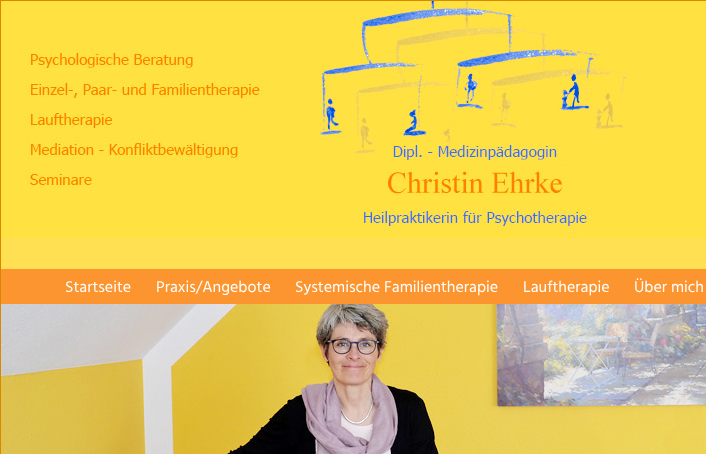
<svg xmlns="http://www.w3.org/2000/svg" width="706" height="454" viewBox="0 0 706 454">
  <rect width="100%" height="100%" fill="rgb(217,137,0)"/>
  <rect x="1" y="238" width="705" height="31" fill="rgb(254,224,82)"/>
  <image x="1" y="1" width="705" height="237" href="pic1.png"/>
  <rect x="1" y="269" width="705" height="35" fill="rgb(252,149,48)"/>
  <g font-family="Hind" font-size="16" fill="rgb(255,255,255)">
    <text x="65" y="292">Startseite</text>
    <text x="156" y="292">Praxis/Angebote</text>
    <text x="295" y="292">Systemische Familientherapie</text>
    <text x="523" y="292">Lauftherapie</text>
    <text x="634" y="292">Über mich</text>
  </g>
  <image x="1" y="304" width="705" height="150" href="pic2.png"/>
</svg>
